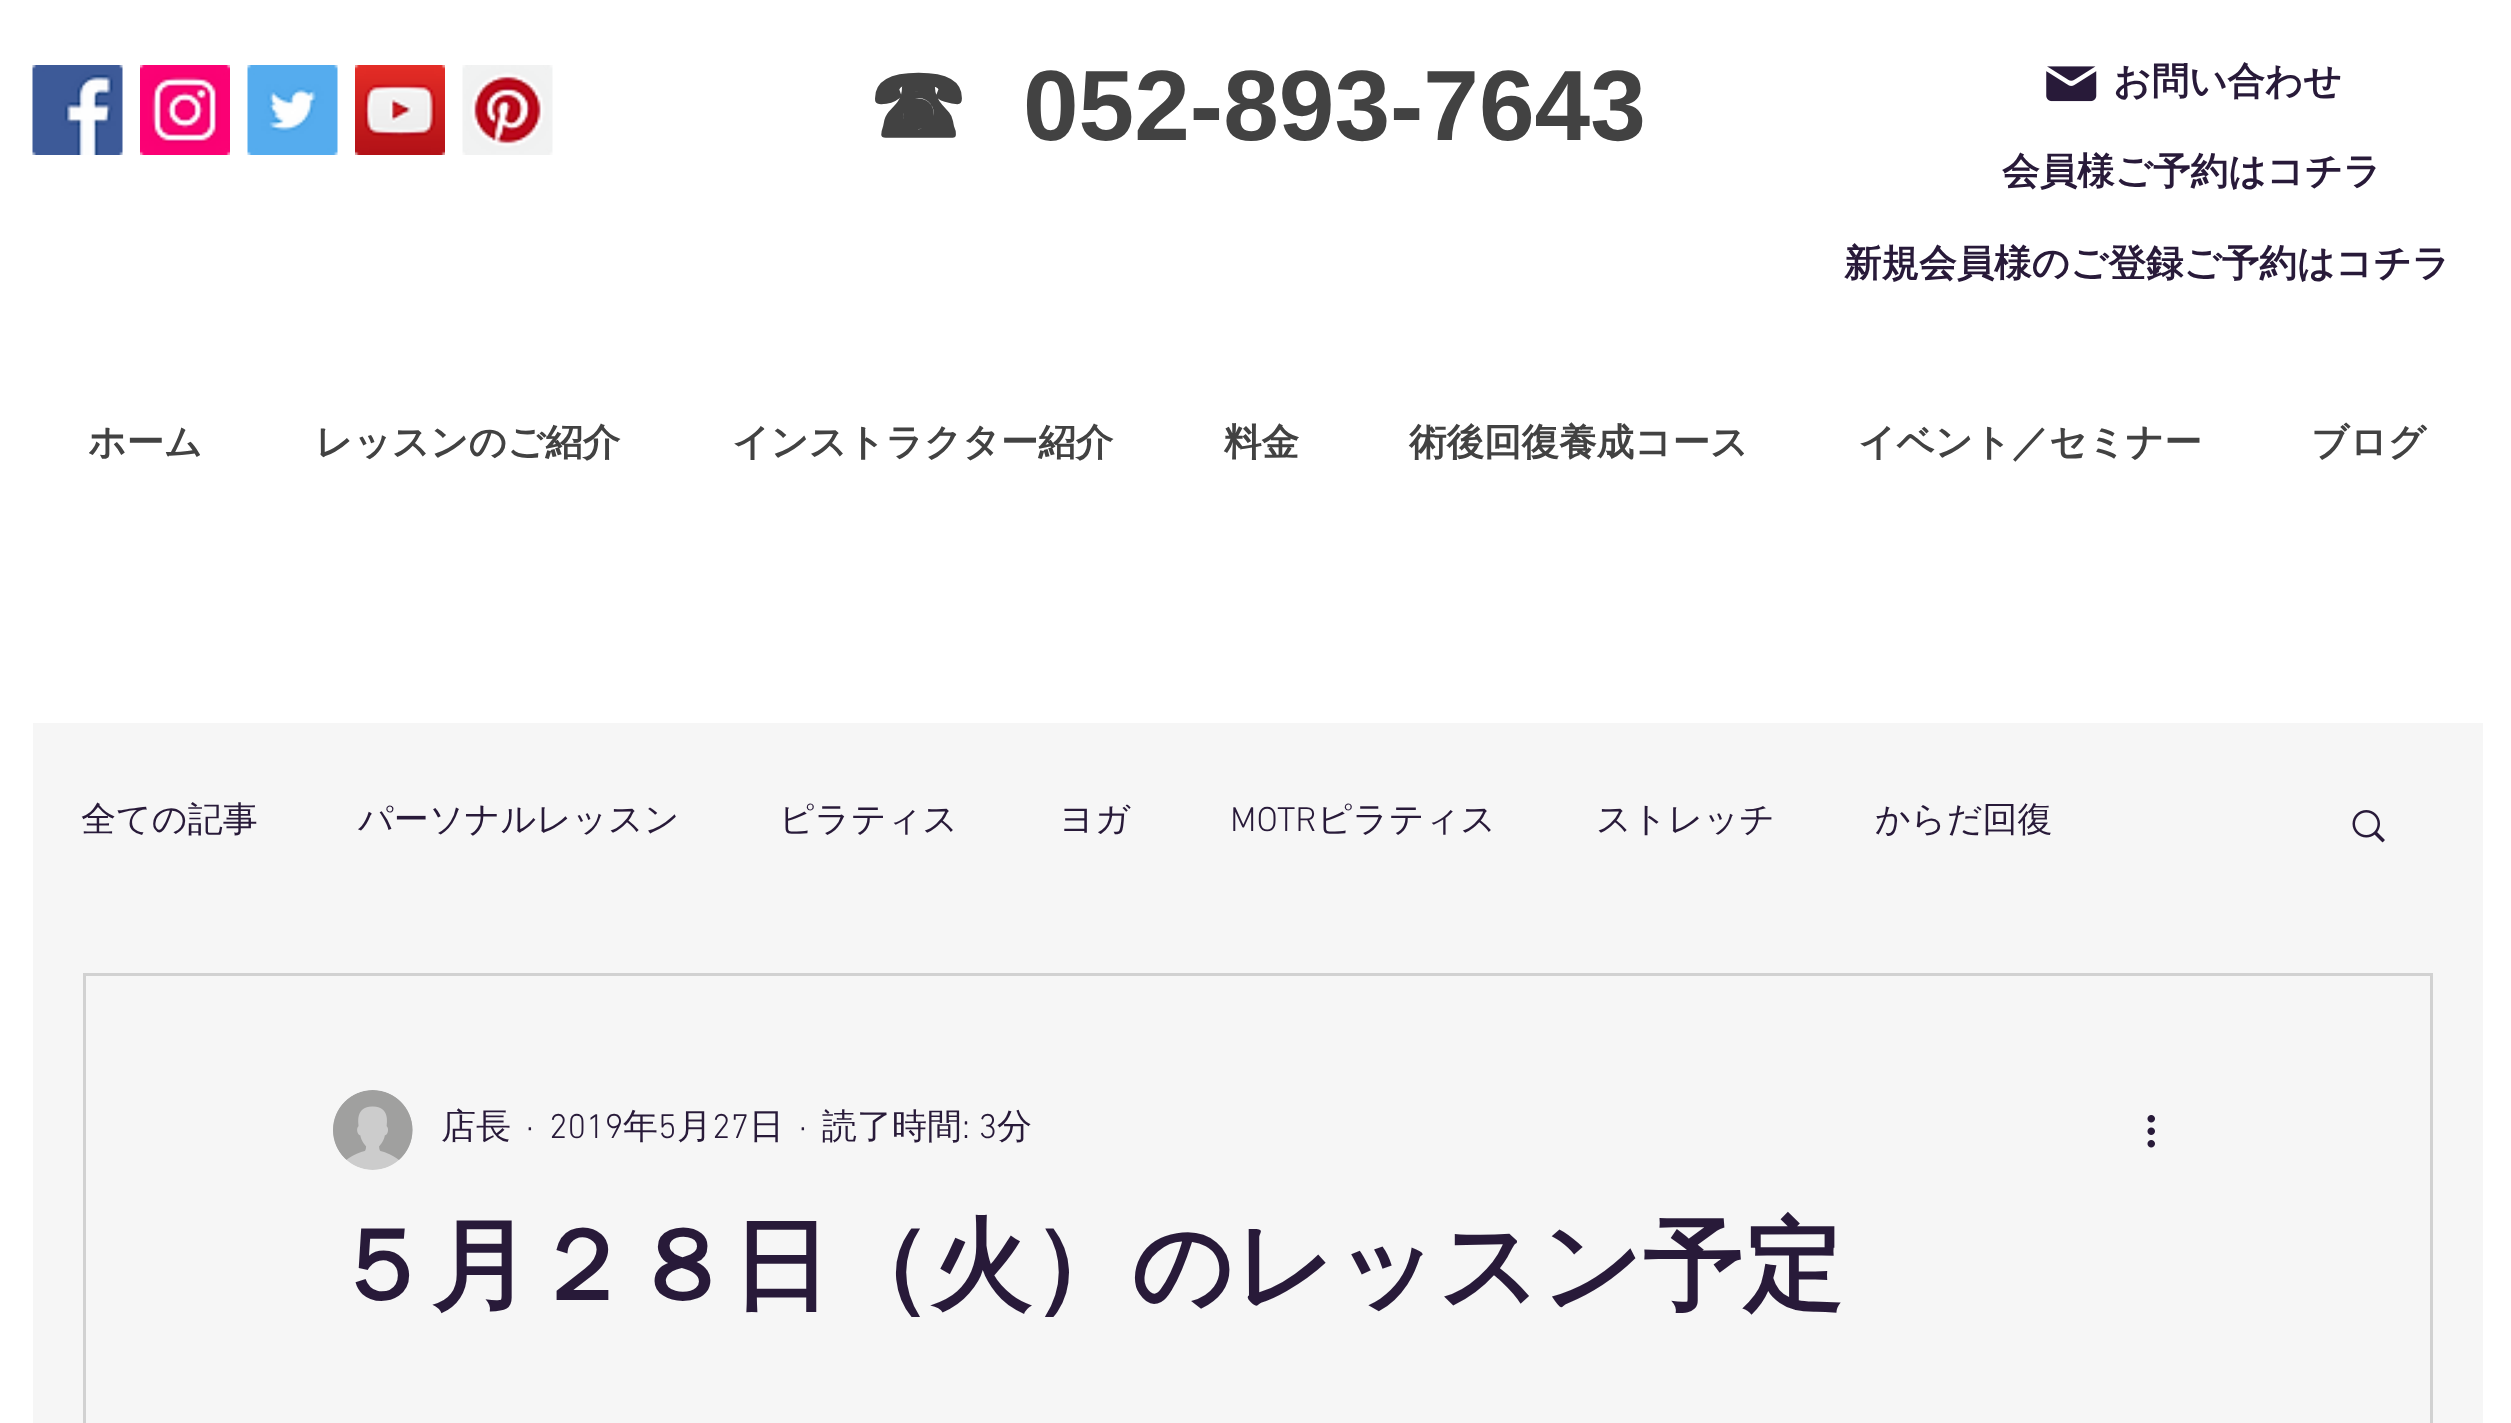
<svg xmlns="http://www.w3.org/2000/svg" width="2511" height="1423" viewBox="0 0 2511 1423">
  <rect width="100%" height="100%" fill="rgb(255,255,255)"/>
  <image x="32" y="65" width="91" height="90" href="pic1.png"/>
  <image x="140" y="65" width="90" height="90" href="pic2.png"/>
  <image x="247" y="65" width="91" height="90" href="pic3.png"/>
  <image x="355" y="65" width="90" height="90" href="pic4.png"/>
  <image x="462" y="65" width="91" height="90" href="pic5.png"/>
  <text x="867" y="140" font-family="WenQuanYi Zen Hei" font-size="100" font-weight="bold" fill="rgb(66,66,66)">☎</text>
  <text x="1023" y="140" font-family="Liberation Sans" font-size="100" font-weight="bold" fill="rgb(66,66,66)">052-893-7643</text>
  <image x="2046" y="66" width="51" height="36" href="pic6.png"/>
  <g font-family="WenQuanYi Zen Hei" font-size="37.5" font-weight="bold" fill="rgb(40,26,57)">
    <text x="2113" y="94">お問い合わせ</text>
    <text x="2002" y="184">会員様ご予約はコチラ</text>
    <text x="1844" y="276">新規会員様のご登録ご予約はコチラ</text>
  </g>
  <g font-family="WenQuanYi Zen Hei" font-size="37.5" font-weight="bold" fill="rgb(66,66,66)">
    <text x="88" y="455">ホーム</text>
    <text x="315" y="455">レッスンのご紹介</text>
    <text x="732" y="455">インストラクター紹介</text>
    <text x="1224" y="455">料金</text>
    <text x="1409" y="455">術後回復養成コース</text>
    <text x="1858" y="455">イベント／セミナー</text>
    <text x="2311" y="455">ブログ</text>
  </g>
  <rect x="33" y="723" width="2450" height="700" fill="rgb(246,246,246)"/>
  <g font-family="WenQuanYi Zen Hei" font-size="35" font-weight="500" fill="rgb(40,26,57)">
    <text x="81" y="831">全ての記事</text>
    <text x="358" y="831">パーソナルレッスン</text>
    <text x="779" y="831">ピラティス</text>
    <text x="1059" y="831">ヨガ</text>
  </g>
  <text x="1230" y="831" font-family="'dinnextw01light'" font-size="35" font-weight="300" fill="rgb(40,26,57)">MOTR</text>
  <g font-family="WenQuanYi Zen Hei" font-size="35" font-weight="500" fill="rgb(40,26,57)">
    <text x="1317" y="831">ピラティス</text>
    <text x="1596" y="831">ストレッチ</text>
    <text x="1875" y="831">からだ回復</text>
  </g>
  <image x="2352" y="810" width="33" height="33" href="pic7.png"/>
  <rect x="84.5" y="974.5" width="2347" height="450" fill="none" stroke="rgb(209,209,209)" stroke-width="3"/>
  <image x="333" y="1090" width="80" height="80" href="pic8.png"/>
  <text x="441" y="1138" font-family="WenQuanYi Zen Hei" font-size="35" font-weight="500" fill="rgb(40,26,57)">店長</text>
  <g font-family="'dinnextw01light'" font-size="35" font-weight="300" fill="rgb(40,26,57)">
    <text x="526" y="1138">·</text>
    <text x="549" y="1138">2019</text>
  </g>
  <text x="623" y="1138" font-family="WenQuanYi Zen Hei" font-size="35" font-weight="500" fill="rgb(40,26,57)">年</text>
  <text x="658" y="1138" font-family="'dinnextw01light'" font-size="35" font-weight="300" fill="rgb(40,26,57)">5</text>
  <text x="677" y="1138" font-family="WenQuanYi Zen Hei" font-size="35" font-weight="500" fill="rgb(40,26,57)">月</text>
  <text x="712" y="1138" font-family="'dinnextw01light'" font-size="35" font-weight="300" fill="rgb(40,26,57)">27</text>
  <text x="749" y="1138" font-family="WenQuanYi Zen Hei" font-size="35" font-weight="500" fill="rgb(40,26,57)">日</text>
  <text x="799" y="1138" font-family="'dinnextw01light'" font-size="35" font-weight="300" fill="rgb(40,26,57)">·</text>
  <text x="822" y="1138" font-family="WenQuanYi Zen Hei" font-size="35" font-weight="500" fill="rgb(40,26,57)">読了時間</text>
  <text x="962" y="1138" font-family="'dinnextw01light'" font-size="35" font-weight="300" fill="rgb(40,26,57)">: 3</text>
  <text x="997" y="1138" font-family="WenQuanYi Zen Hei" font-size="35" font-weight="500" fill="rgb(40,26,57)">分</text>
  <image x="2147" y="1115" width="8" height="33" href="pic9.png"/>
  <text x="331" y="1300" font-family="WenQuanYi Zen Hei" font-size="100" font-weight="bold" fill="rgb(40,26,57)">５月２８日（火）のレッスン予定</text>
</svg>
